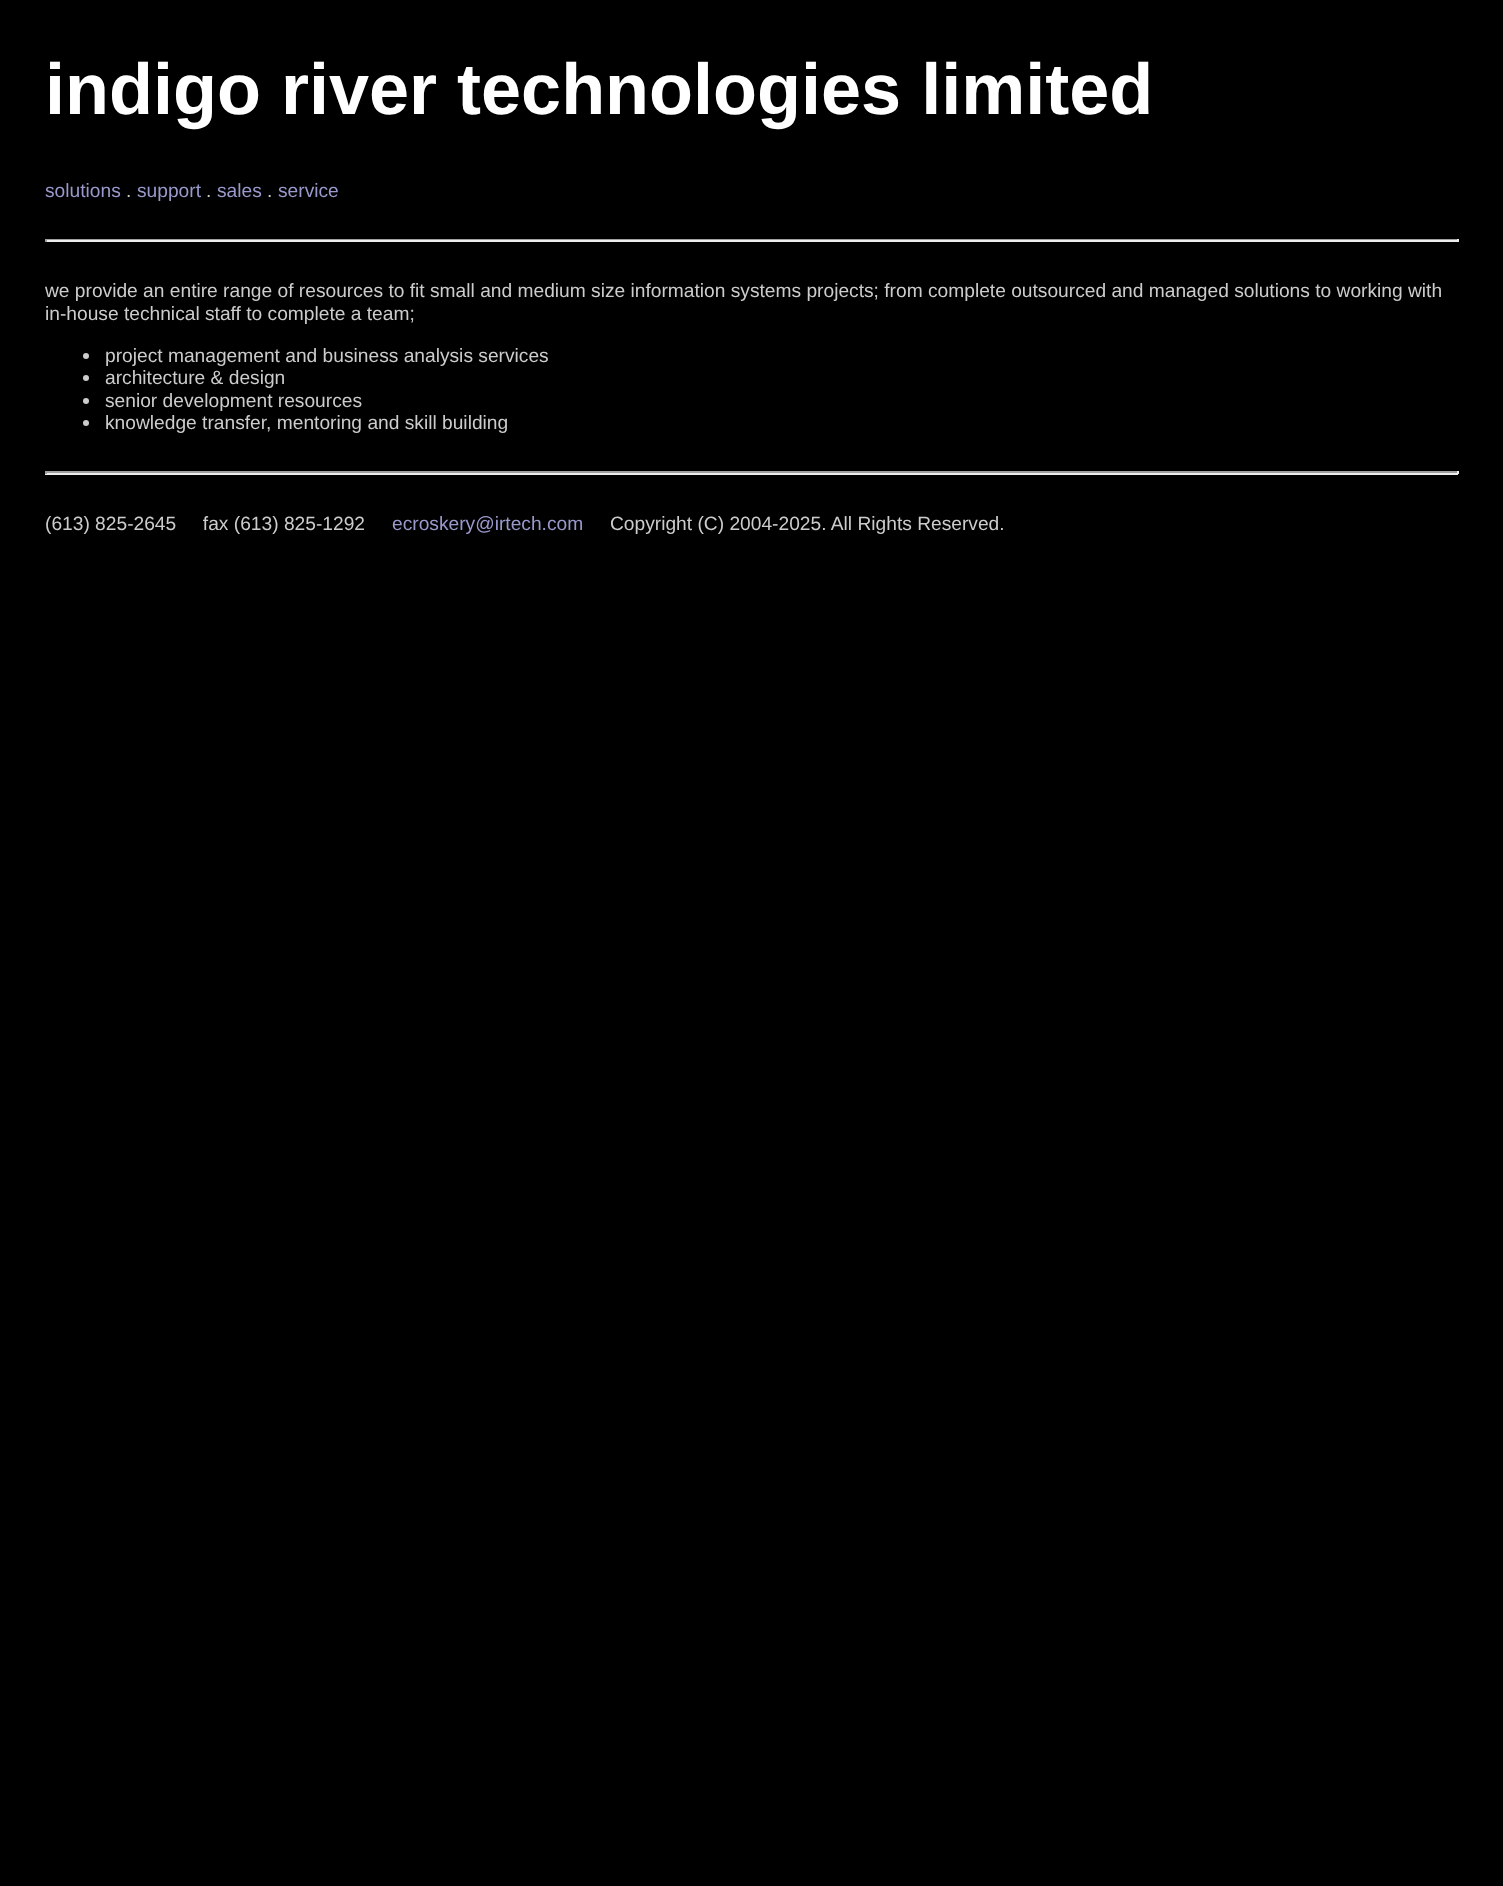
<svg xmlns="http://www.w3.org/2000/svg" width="1503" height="1886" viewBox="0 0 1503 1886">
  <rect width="100%" height="100%" fill="rgb(0,0,0)"/>
  <text x="45" y="114" font-family="Liberation Sans" font-size="72" font-weight="bold" fill="rgb(255,255,255)">indigo river technologies limited</text>
  <text x="45" y="197" font-family="Liberation Sans" font-size="19.2" fill="rgb(153,153,204)">solutions</text>
  <text x="126" y="197" font-family="Liberation Sans" font-size="19.2" fill="rgb(204,204,204)">.</text>
  <text x="137" y="197" font-family="Liberation Sans" font-size="19.2" fill="rgb(153,153,204)">support</text>
  <text x="206" y="197" font-family="Liberation Sans" font-size="19.2" fill="rgb(204,204,204)">.</text>
  <text x="217" y="197" font-family="Liberation Sans" font-size="19.2" fill="rgb(153,153,204)">sales</text>
  <text x="267" y="197" font-family="Liberation Sans" font-size="19.2" fill="rgb(204,204,204)">.</text>
  <text x="278" y="197" font-family="Liberation Sans" font-size="19.2" fill="rgb(153,153,204)">service</text>
  <rect x="45" y="239" width="1413" height="1" fill="rgb(159,159,159)"/>
  <rect x="1457" y="239" width="2" height="3" fill="rgb(238,238,238)"/>
  <rect x="45" y="240" width="1413" height="2" fill="rgb(238,238,238)"/>
  <rect x="45" y="239" width="2" height="3" fill="rgb(159,159,159)"/>
  <g font-family="Liberation Sans" font-size="19.2" fill="rgb(204,204,204)">
    <text>
      <tspan x="45" y="297">we provide an entire range of resources to fit small and medium size information systems projects; from complete outsourced and managed solutions to working with</tspan>
      <tspan x="45" y="320">in-house technical staff to complete a team;</tspan>
    </text>
  </g>
  <circle cx="86" cy="356" r="3" fill="rgb(204,204,204)"/>
  <text x="105" y="362" font-family="Liberation Sans" font-size="19.2" fill="rgb(204,204,204)">project management and business analysis services</text>
  <circle cx="86" cy="378" r="3" fill="rgb(204,204,204)"/>
  <text x="105" y="384" font-family="Liberation Sans" font-size="19.2" fill="rgb(204,204,204)">architecture &amp; design</text>
  <circle cx="86" cy="401" r="3" fill="rgb(204,204,204)"/>
  <text x="105" y="407" font-family="Liberation Sans" font-size="19.2" fill="rgb(204,204,204)">senior development resources</text>
  <circle cx="86" cy="423" r="3" fill="rgb(204,204,204)"/>
  <text x="105" y="429" font-family="Liberation Sans" font-size="19.2" fill="rgb(204,204,204)">knowledge transfer, mentoring and skill building</text>
  <rect x="45" y="471" width="1413" height="2" fill="rgb(159,159,159)"/>
  <rect x="1457" y="471" width="2" height="3" fill="rgb(238,238,238)"/>
  <rect x="45" y="473" width="1413" height="2" fill="rgb(238,238,238)"/>
  <rect x="45" y="471" width="2" height="3" fill="rgb(159,159,159)"/>
  <text x="45" y="530" font-family="Liberation Sans" font-size="19.2" fill="rgb(204,204,204)" xml:space="preserve">(613) 825-2645     fax (613) 825-1292</text>
  <text x="392" y="530" font-family="Liberation Sans" font-size="19.2" fill="rgb(153,153,204)">ecroskery@irtech.com</text>
  <text x="610" y="530" font-family="Liberation Sans" font-size="19.2" fill="rgb(204,204,204)">Copyright (C) 2004-2025. All Rights Reserved.</text>
</svg>
